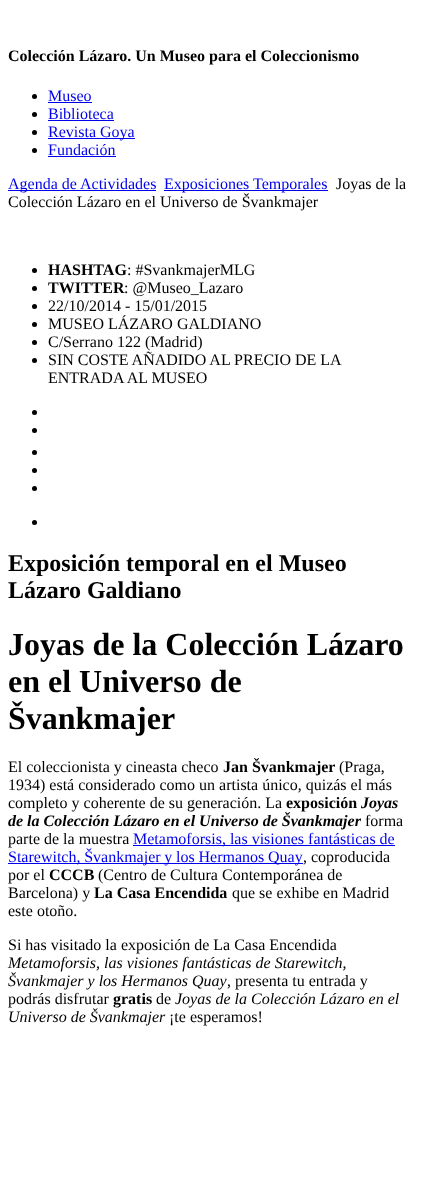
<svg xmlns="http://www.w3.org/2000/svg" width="422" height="1197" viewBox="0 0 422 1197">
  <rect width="100%" height="100%" fill="rgb(255,255,255)"/>
  <text x="8" y="61" font-family="Liberation Serif" font-size="16" font-weight="bold" fill="rgb(0,0,0)">Colección Lázaro. Un Museo para el Coleccionismo</text>
  <circle cx="34.5" cy="96.5" r="2.5" fill="rgb(0,0,0)"/>
  <text x="48" y="101" font-family="Liberation Serif" font-size="16" fill="rgb(0,0,238)">Museo</text>
  <rect x="48" y="102" width="44" height="1" fill="rgb(0,0,238)"/>
  <circle cx="34.5" cy="114.5" r="2.5" fill="rgb(0,0,0)"/>
  <text x="48" y="119" font-family="Liberation Serif" font-size="16" fill="rgb(0,0,238)">Biblioteca</text>
  <rect x="48" y="120" width="66" height="1" fill="rgb(0,0,238)"/>
  <circle cx="34.5" cy="132.5" r="2.5" fill="rgb(0,0,0)"/>
  <rect x="48" y="138" width="87" height="1" fill="rgb(0,0,238)"/>
  <text x="48" y="137" font-family="Liberation Serif" font-size="16" fill="rgb(0,0,238)">Revista Goya</text>
  <circle cx="34.5" cy="150.5" r="2.5" fill="rgb(0,0,0)"/>
  <text x="48" y="155" font-family="Liberation Serif" font-size="16" fill="rgb(0,0,238)">Fundación</text>
  <rect x="48" y="156" width="68" height="1" fill="rgb(0,0,238)"/>
  <rect x="8" y="190" width="148" height="1" fill="rgb(0,0,238)"/>
  <text x="8" y="189" font-family="Liberation Serif" font-size="16" fill="rgb(0,0,238)">Agenda de Actividades</text>
  <rect x="164" y="190" width="164" height="1" fill="rgb(0,0,238)"/>
  <text x="164" y="189" font-family="Liberation Serif" font-size="16" fill="rgb(0,0,238)">Exposiciones Temporales</text>
  <g font-family="Liberation Serif" font-size="16" fill="rgb(0,0,0)">
    <text x="336" y="189">Joyas de la</text>
    <text x="8" y="207">Colección Lázaro en el Universo de Švankmajer</text>
  </g>
  <circle cx="34.5" cy="270.5" r="2.5" fill="rgb(0,0,0)"/>
  <text x="48" y="275" font-family="Liberation Serif" font-size="16" font-weight="bold" fill="rgb(0,0,0)">HASHTAG</text>
  <text x="127" y="275" font-family="Liberation Serif" font-size="16" fill="rgb(0,0,0)">: #SvankmajerMLG</text>
  <circle cx="34.5" cy="288.5" r="2.5" fill="rgb(0,0,0)"/>
  <text x="48" y="293" font-family="Liberation Serif" font-size="16" font-weight="bold" fill="rgb(0,0,0)">TWITTER</text>
  <text x="124" y="293" font-family="Liberation Serif" font-size="16" fill="rgb(0,0,0)">: @Museo_Lazaro</text>
  <circle cx="34.5" cy="306.5" r="2.5" fill="rgb(0,0,0)"/>
  <text x="48" y="311" font-family="Liberation Serif" font-size="16" fill="rgb(0,0,0)">22/10/2014 - 15/01/2015</text>
  <circle cx="34.5" cy="324.5" r="2.5" fill="rgb(0,0,0)"/>
  <text x="48" y="329" font-family="Liberation Serif" font-size="16" fill="rgb(0,0,0)">MUSEO LÁZARO GALDIANO</text>
  <circle cx="34.5" cy="342.5" r="2.5" fill="rgb(0,0,0)"/>
  <text x="48" y="347" font-family="Liberation Serif" font-size="16" fill="rgb(0,0,0)">C/Serrano 122 (Madrid)</text>
  <circle cx="34.5" cy="360.5" r="2.5" fill="rgb(0,0,0)"/>
  <g font-family="Liberation Serif" font-size="16" fill="rgb(0,0,0)">
    <text>
      <tspan x="48" y="365">SIN COSTE AÑADIDO AL PRECIO DE LA</tspan>
      <tspan x="48" y="383">ENTRADA AL MUSEO</tspan>
    </text>
  </g>
  <circle cx="34.5" cy="412.5" r="2.5" fill="rgb(0,0,0)"/>
  <circle cx="34.5" cy="430.5" r="2.5" fill="rgb(0,0,0)"/>
  <circle cx="34.5" cy="452.5" r="2.5" fill="rgb(0,0,0)"/>
  <circle cx="34.5" cy="470.5" r="2.5" fill="rgb(0,0,0)"/>
  <circle cx="34.5" cy="488.5" r="2.5" fill="rgb(0,0,0)"/>
  <circle cx="34.5" cy="522.5" r="2.5" fill="rgb(0,0,0)"/>
  <g font-family="Liberation Serif" font-size="24" font-weight="bold" fill="rgb(0,0,0)">
    <text>
      <tspan x="8" y="571">Exposición temporal en el Museo</tspan>
      <tspan x="8" y="598">Lázaro Galdiano</tspan>
    </text>
  </g>
  <g font-family="Liberation Serif" font-size="32" font-weight="bold" fill="rgb(0,0,0)">
    <text>
      <tspan x="8" y="655">Joyas de la Colección Lázaro</tspan>
      <tspan x="8" y="692">en el Universo de</tspan>
      <tspan x="8" y="729">Švankmajer</tspan>
    </text>
  </g>
  <text x="8" y="772" font-family="Liberation Serif" font-size="16" fill="rgb(0,0,0)">El coleccionista y cineasta checo</text>
  <text x="223" y="772" font-family="Liberation Serif" font-size="16" font-weight="bold" fill="rgb(0,0,0)">Jan Švankmajer</text>
  <g font-family="Liberation Serif" font-size="16" fill="rgb(0,0,0)">
    <text x="339" y="772">(Praga,</text>
    <text>
      <tspan x="8" y="790">1934) está considerado como un artista único, quizás el más</tspan>
      <tspan x="8" y="808">completo y coherente de su generación. La</tspan>
    </text>
  </g>
  <text x="286" y="808" font-family="Liberation Serif" font-size="16" font-weight="bold" fill="rgb(0,0,0)">exposición</text>
  <g font-family="Liberation Serif" font-size="16" font-weight="bold" font-style="italic" fill="rgb(0,0,0)">
    <text x="361" y="808">Joyas</text>
    <text x="8" y="826">de la Colección Lázaro en el Universo de Švankmajer</text>
  </g>
  <g font-family="Liberation Serif" font-size="16" fill="rgb(0,0,0)">
    <text x="365" y="826">forma</text>
    <text x="8" y="844">parte de la muestra</text>
  </g>
  <rect x="133" y="845" width="262" height="1" fill="rgb(0,0,238)"/>
  <text x="133" y="844" font-family="Liberation Serif" font-size="16" fill="rgb(0,0,238)">Metamoforsis, las visiones fantásticas de</text>
  <rect x="8" y="863" width="295" height="1" fill="rgb(0,0,238)"/>
  <text x="8" y="862" word-spacing="-0.25" font-family="Liberation Serif" font-size="16" fill="rgb(0,0,238)">Starewitch, Švankmajer y los Hermanos Quay</text>
  <g font-family="Liberation Serif" font-size="16" fill="rgb(0,0,0)">
    <text x="303" y="862">, coproducida</text>
    <text x="8" y="880">por el</text>
  </g>
  <text x="49" y="880" font-family="Liberation Serif" font-size="16" font-weight="bold" fill="rgb(0,0,0)">CCCB</text>
  <g font-family="Liberation Serif" font-size="16" fill="rgb(0,0,0)">
    <text x="98" y="880">(Centro de Cultura Contemporánea de</text>
    <text x="8" y="898">Barcelona) y</text>
  </g>
  <text x="94" y="898" font-family="Liberation Serif" font-size="16" font-weight="bold" fill="rgb(0,0,0)">La Casa Encendida</text>
  <g font-family="Liberation Serif" font-size="16" fill="rgb(0,0,0)">
    <text x="232" y="898">que se exhibe en Madrid</text>
    <text x="8" y="916">este otoño.</text>
    <text x="8" y="950">Si has visitado la exposición de La Casa Encendida</text>
  </g>
  <g font-family="Liberation Serif" font-size="16" font-style="italic" fill="rgb(0,0,0)">
    <text>
      <tspan x="8" y="968">Metamoforsis, las visiones fantásticas de Starewitch,</tspan>
      <tspan x="8" y="986">Švankmajer y los Hermanos Quay</tspan>
    </text>
  </g>
  <g font-family="Liberation Serif" font-size="16" fill="rgb(0,0,0)">
    <text x="227" y="986">, presenta tu entrada y</text>
    <text x="8" y="1004">podrás disfrutar</text>
  </g>
  <text x="113" y="1004" font-family="Liberation Serif" font-size="16" font-weight="bold" fill="rgb(0,0,0)">gratis</text>
  <text x="156" y="1004" font-family="Liberation Serif" font-size="16" fill="rgb(0,0,0)">de</text>
  <g font-family="Liberation Serif" font-size="16" font-style="italic" fill="rgb(0,0,0)">
    <text x="175" y="1004">Joyas de la Colección Lázaro en el</text>
    <text x="8" y="1022">Universo de Švankmajer</text>
  </g>
  <text x="169" y="1022" font-family="Liberation Serif" font-size="16" fill="rgb(0,0,0)">¡te esperamos!</text>
</svg>
